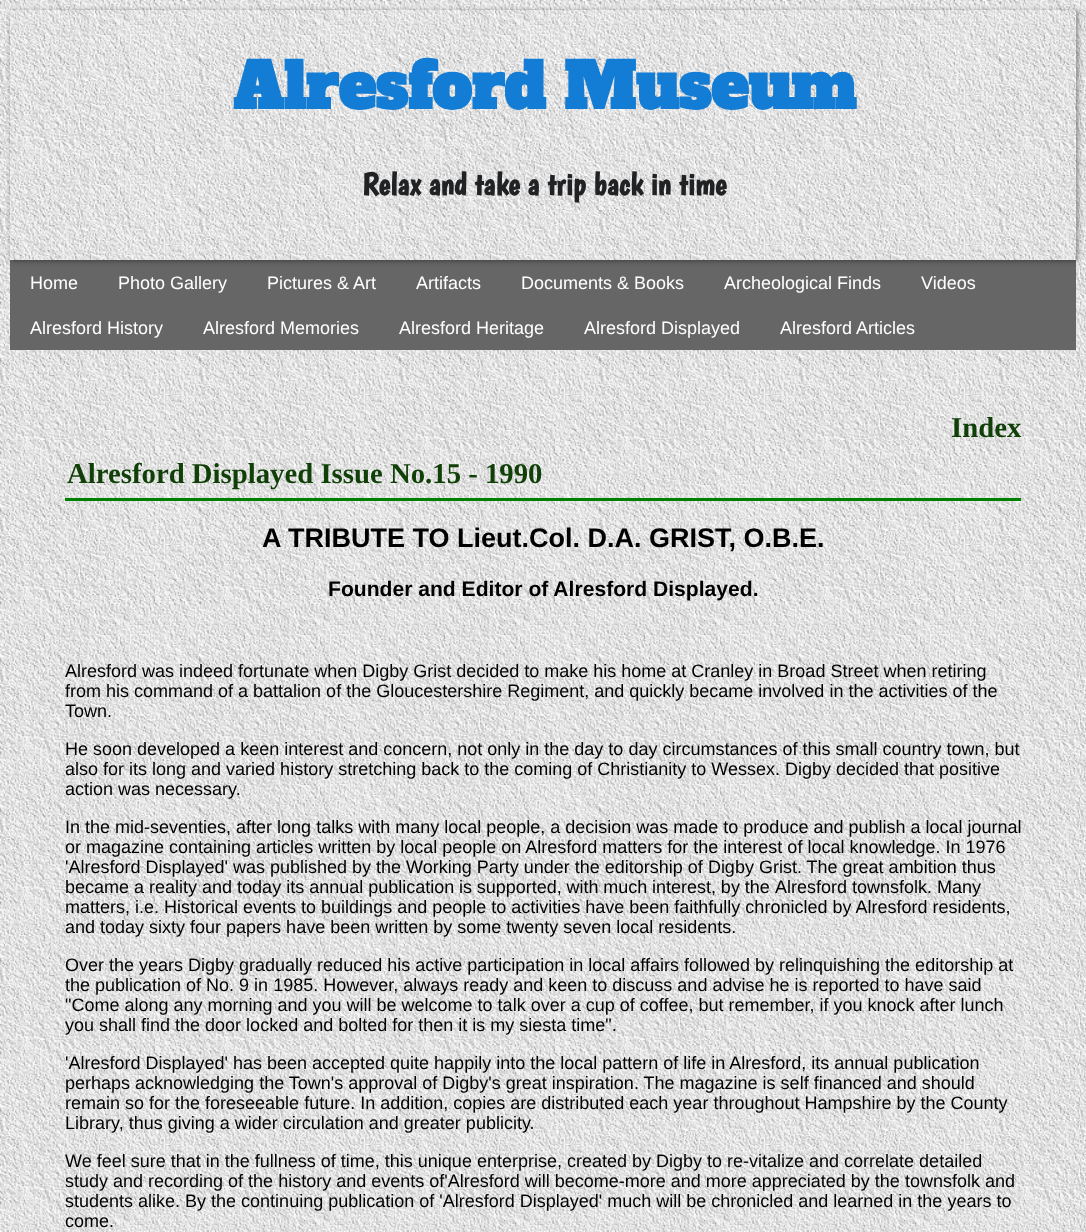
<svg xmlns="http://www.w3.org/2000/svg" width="1086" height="1232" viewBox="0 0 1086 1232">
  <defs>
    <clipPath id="clip1"><path d="M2 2H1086V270H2ZM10 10H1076V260H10Z" clip-rule="evenodd"/></clipPath>
  </defs>
  <rect width="100%" height="100%" fill="rgb(255,255,255)"/>
  <image x="0" y="0" width="1086" height="1232" href="pic1.png"/>
  <rect x="10" y="260" width="1066" height="90" fill="rgb(102,102,102)"/>
  <g clip-path="url(#clip1)">
    <rect x="11" y="11" width="1067" height="250" fill="rgba(0,0,0,0.4)" filter="blur(2.5px)"/>
  </g>
  <image x="443" y="60" width="201" height="150" href="pic2.png"/>
  <text x="233" y="109" font-family="Alfa Slab One" font-size="62.5" font-weight="bold" fill="rgb(19,125,213)">Alresford Museum</text>
  <text x="362" y="195" font-family="Boogaloo" font-size="31.25" font-weight="bold" fill="rgb(32,34,36)">Relax and take a trip back in time</text>
  <g font-family="Liberation Sans" font-size="18" fill="rgb(255,255,255)">
    <text x="30" y="289">Home</text>
    <text x="118" y="289">Photo Gallery</text>
    <text x="267" y="289">Pictures &amp; Art</text>
    <text x="416" y="289">Artifacts</text>
    <text x="521" y="289">Documents &amp; Books</text>
    <text x="724" y="289">Archeological Finds</text>
    <text x="921" y="289">Videos</text>
    <text x="30" y="334">Alresford History</text>
    <text x="203" y="334">Alresford Memories</text>
    <text x="399" y="334">Alresford Heritage</text>
    <text x="584" y="334">Alresford Displayed</text>
    <text x="780" y="334">Alresford Articles</text>
  </g>
  <text x="951" y="437" font-family="Liberation Serif" font-size="28.75" font-weight="bold" fill="rgb(16,64,8)">Index</text>
  <rect x="65" y="498" width="956" height="3" fill="rgb(0,128,0)"/>
  <text x="67" y="483" font-family="Liberation Serif" font-size="28.75" font-weight="bold" fill="rgb(16,64,8)">Alresford Displayed Issue No.15 - 1990</text>
  <text x="262" y="547" font-family="Liberation Sans" font-size="27" font-weight="bold" fill="rgb(0,0,0)">A TRIBUTE TO Lieut.Col. D.A. GRIST, O.B.E.</text>
  <text x="328" y="596" font-family="Liberation Sans" font-size="21.1" font-weight="bold" fill="rgb(0,0,0)">Founder and Editor of Alresford Displayed.</text>
  <g font-family="Liberation Sans" font-size="18" fill="rgb(0,0,0)">
    <text>
      <tspan x="65" y="677">Alresford was indeed fortunate when Digby Grist decided to make his home at Cranley in Broad Street when retiring</tspan>
      <tspan x="65" y="697">from his command of a battalion of the Gloucestershire Regiment, and quickly became involved in the activities of the</tspan>
      <tspan x="65" y="717">Town.</tspan>
    </text>
    <text>
      <tspan x="65" y="755">He soon developed a keen interest and concern, not only in the day to day circumstances of this small country town, but</tspan>
      <tspan x="65" y="775">also for its long and varied history stretching back to the coming of Christianity to Wessex. Digby decided that positive</tspan>
      <tspan x="65" y="795">action was necessary.</tspan>
    </text>
    <text>
      <tspan x="65" y="833">In the mid-seventies, after long talks with many local people, a decision was made to produce and publish a local journal</tspan>
      <tspan x="65" y="853">or magazine containing articles written by local people on Alresford matters for the interest of local knowledge. In 1976</tspan>
      <tspan x="65" y="873">'Alresford Displayed' was published by the Working Party under the editorship of Digby Grist. The great ambition thus</tspan>
      <tspan x="65" y="893">became a reality and today its annual publication</tspan>
    </text>
    <text x="459" y="893" word-spacing="-0.25">is supported, with much interest, by the</text>
    <text x="775" y="893">Alresford townsfolk. Many</text>
    <text>
      <tspan x="65" y="913">matters, i.e. Historical events to buildings and people to activities have been faithfully chronicled by Alresford residents,</tspan>
      <tspan x="65" y="933">and today sixty four papers have been written by some twenty seven local residents.</tspan>
    </text>
    <text>
      <tspan x="65" y="971">Over the years Digby gradually reduced his active participation in local affairs followed by relinquishing the editorship at</tspan>
      <tspan x="65" y="991">the publication of No. 9 in 1985. However, always ready and keen to discuss and advise he is reported to have said</tspan>
      <tspan x="65" y="1011">"Come along any morning and you will be welcome to talk over a cup of coffee, but remember, if you knock after lunch</tspan>
      <tspan x="65" y="1031">you shall find the door locked and bolted for then it is my siesta time".</tspan>
    </text>
    <text>
      <tspan x="65" y="1069">'Alresford Displayed' has been accepted quite happily into the local pattern of life in Alresford, its annual publication</tspan>
      <tspan x="65" y="1089">perhaps acknowledging the Town's approval of Digby's great inspiration. The magazine is self financed and should</tspan>
      <tspan x="65" y="1109">remain so for the foreseeable future. In addition, copies are distributed each year throughout Hampshire by the County</tspan>
      <tspan x="65" y="1129">Library, thus giving a wider circulation and greater publicity.</tspan>
    </text>
    <text>
      <tspan x="65" y="1167">We feel sure that in the fullness of time, this unique enterprise, created by Digby to re-vitalize and correlate detailed</tspan>
      <tspan x="65" y="1187">study and recording of the history and events of'Alresford will become-more and more appreciated by the townsfolk and</tspan>
      <tspan x="65" y="1207">students alike. By the continuing publication of 'Alresford Displayed' much will be chronicled and learned in the years to</tspan>
      <tspan x="65" y="1227">come.</tspan>
    </text>
  </g>
</svg>
